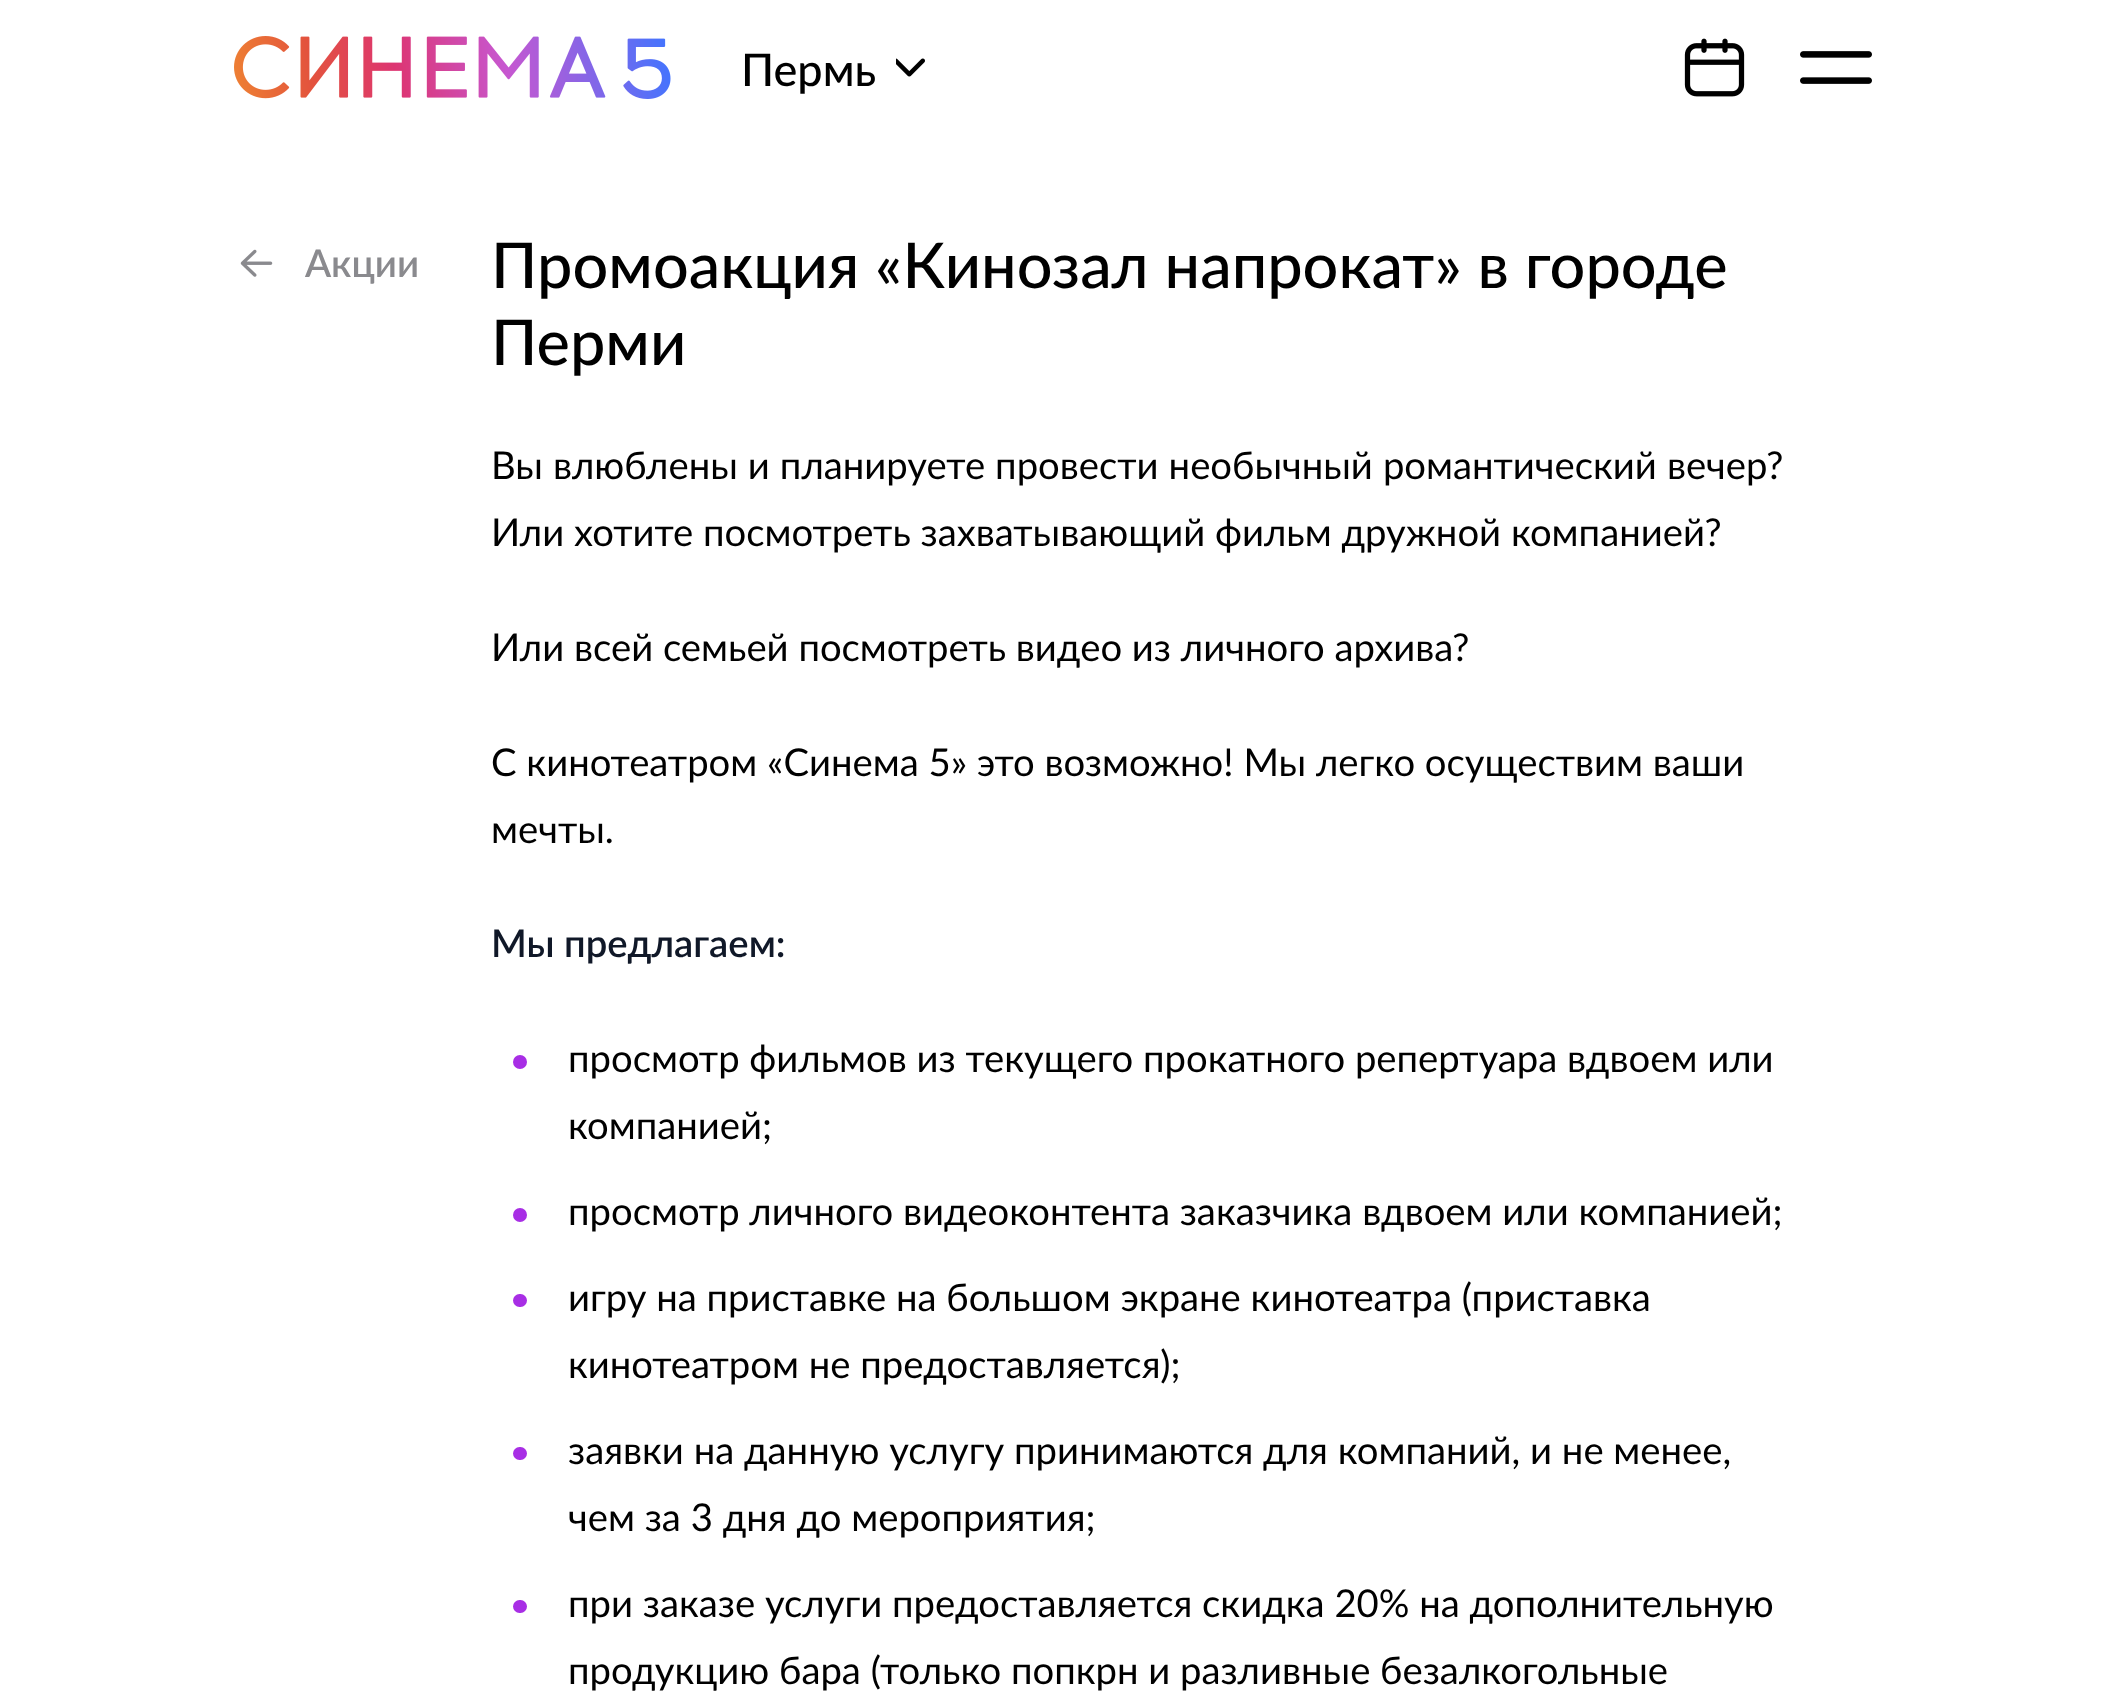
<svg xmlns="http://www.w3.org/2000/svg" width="2103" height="1699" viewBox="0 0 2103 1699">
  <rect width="100%" height="100%" fill="rgb(255,255,255)"/>
  <image x="234" y="36" width="437" height="63" href="pic1.png"/>
  <text x="741" y="86" font-family="Lato" font-size="45" font-weight="500" fill="rgb(0,0,0)">Пермь</text>
  <image x="896" y="58" width="29" height="19" href="pic2.png"/>
  <image x="1684" y="38" width="61" height="59" href="pic3.png"/>
  <image x="1800" y="51" width="72" height="33" href="pic4.png"/>
  <image x="240" y="249" width="33" height="28" href="pic5.png"/>
  <text x="305" y="277" font-family="Lato" font-size="38.25" font-weight="600" fill="rgb(138,138,142)">Акции</text>
  <g font-family="Lato" font-size="63" font-weight="500" fill="rgb(0,0,0)">
    <text>
      <tspan x="491" y="288">Промоакция «Кинозал напрокат» в городе</tspan>
      <tspan x="491" y="365">Перми</tspan>
    </text>
  </g>
  <g font-family="Lato" font-size="38.25" fill="rgb(0,0,0)">
    <text>
      <tspan x="491" y="479" word-spacing="0.25">Вы влюблены и планируете провести необычный романтический вечер?</tspan>
      <tspan x="491" y="546">Или хотите посмотреть захватывающий фильм дружной компанией?</tspan>
    </text>
    <text x="491" y="661">Или всей семьей посмотреть видео из личного архива?</text>
    <text>
      <tspan x="491" y="776">С кинотеатром «Синема 5» это возможно! Мы легко осуществим ваши</tspan>
      <tspan x="491" y="843">мечты.</tspan>
    </text>
  </g>
  <text x="491" y="957" font-family="Lato" font-size="38.25" font-weight="600" fill="rgb(16,24,40)">Мы предлагаем:</text>
  <circle cx="520" cy="1062" r="7" fill="rgb(168,46,229)"/>
  <g font-family="Lato" font-size="38.25" fill="rgb(0,0,0)">
    <text>
      <tspan x="568" y="1072">просмотр фильмов из текущего прокатного репертуара вдвоем или</tspan>
      <tspan x="568" y="1139">компанией;</tspan>
    </text>
  </g>
  <circle cx="520" cy="1215" r="7" fill="rgb(168,46,229)"/>
  <text x="568" y="1225" font-family="Lato" font-size="38.25" fill="rgb(0,0,0)">просмотр личного видеоконтента заказчика вдвоем или компанией;</text>
  <rect x="513" y="1294" width="14" height="13" rx="6.5" fill="rgb(168,46,229)"/>
  <g font-family="Lato" font-size="38.25" fill="rgb(0,0,0)">
    <text>
      <tspan x="568" y="1311">игру на приставке на большом экране кинотеатра (приставка</tspan>
      <tspan x="568" y="1378">кинотеатром не предоставляется);</tspan>
    </text>
  </g>
  <rect x="513" y="1447" width="14" height="13" rx="6.5" fill="rgb(168,46,229)"/>
  <g font-family="Lato" font-size="38.25" fill="rgb(0,0,0)">
    <text>
      <tspan x="568" y="1464">заявки на данную услугу принимаются для компаний, и не менее,</tspan>
      <tspan x="568" y="1531">чем за 3 дня до мероприятия;</tspan>
    </text>
  </g>
  <rect x="513" y="1600" width="14" height="13" rx="6.5" fill="rgb(168,46,229)"/>
  <g font-family="Lato" font-size="38.25" fill="rgb(0,0,0)">
    <text>
      <tspan x="568" y="1617">при заказе услуги предоставляется скидка 20% на дополнительную</tspan>
      <tspan x="568" y="1684">продукцию бара (только попкрн и разливные безалкогольные</tspan>
    </text>
  </g>
</svg>
